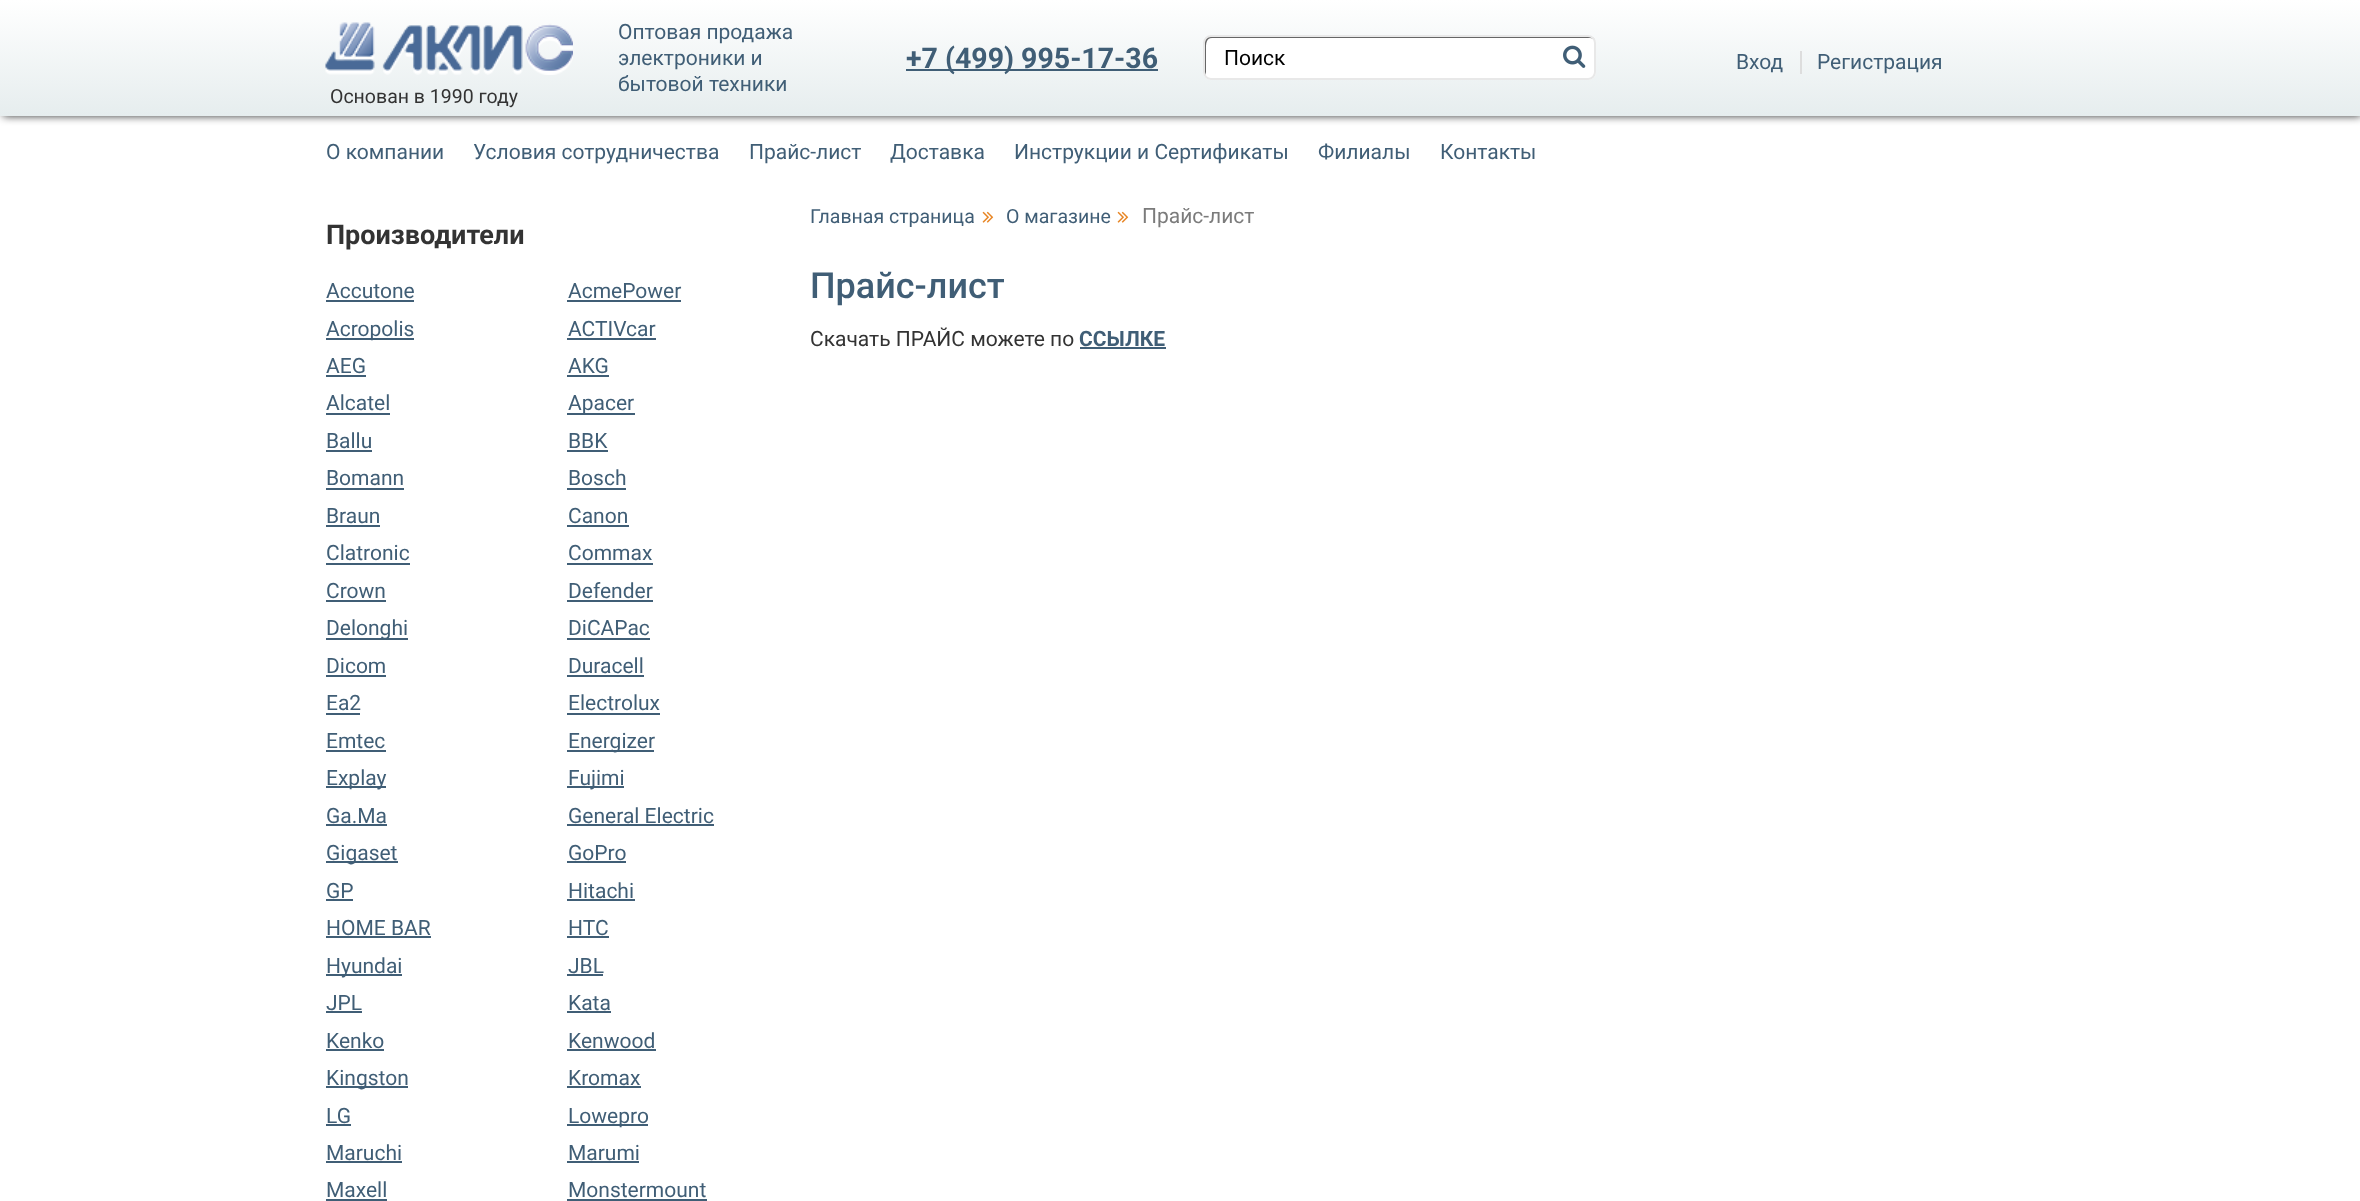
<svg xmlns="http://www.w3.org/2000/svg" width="2360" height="1201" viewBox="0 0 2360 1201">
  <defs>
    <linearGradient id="g1" gradientUnits="userSpaceOnUse" x1="1181" y1="0" x2="1181" y2="116"><stop offset="0" stop-color="rgb(255,255,255)"/><stop offset="1" stop-color="rgb(230,237,238)"/></linearGradient>
  </defs>
  <rect width="100%" height="100%" fill="rgb(255,255,255)"/>
  <rect x="3" y="3" width="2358" height="113" fill="rgba(0,0,0,0.8)" filter="blur(4px)"/>
  <rect x="0" y="0" width="2360" height="116" fill="url(#g1)"/>
  <g font-family="Roboto" font-size="21" fill="rgb(64,94,118)">
    <text>
      <tspan x="618" y="39">Оптовая продажа</tspan>
      <tspan x="618" y="65">электроники и</tspan>
      <tspan x="618" y="91">бытовой техники</tspan>
    </text>
  </g>
  <rect x="906" y="69" width="252" height="2" fill="rgb(64,94,118)"/>
  <text x="906" y="68" font-family="Roboto" font-size="28.5" font-weight="bold" fill="rgb(64,94,118)">+7 (499) 995-17-36</text>
  <rect x="1203" y="35" width="393" height="45" rx="8" fill="rgb(255,255,255)"/>
  <path d="M1212 38H1590C1592 38 1594 39 1595 40C1594 38 1592 36 1589 36H1211C1208 36 1205 39 1205 42V72C1205 73 1206 75 1206 76V49C1206 44 1206 38 1212 38Z" fill="rgb(102,102,102)"/>
  <rect x="1204" y="36" width="391" height="43" rx="7" fill="none" stroke="rgb(232,232,232)" stroke-width="2"/>
  <text x="1224" y="65" font-family="Roboto" font-size="21" fill="rgb(0,0,0)">Поиск</text>
  <image x="1563" y="45" width="23" height="23" href="pic1.png"/>
  <rect x="1800" y="51" width="2" height="23" fill="rgb(221,221,221)"/>
  <g font-family="Roboto" font-size="21" fill="rgb(64,94,118)">
    <text x="1736" y="69">Вход</text>
    <text x="1817" y="69">Регистрация</text>
  </g>
  <image x="325" y="22" width="248" height="53" href="pic2.png"/>
  <text x="330" y="103" font-family="Roboto" font-size="19.5" fill="rgb(51,51,51)">Основан в 1990 году</text>
  <g font-family="Roboto" font-size="21" fill="rgb(64,94,118)">
    <text x="326" y="159">О компании</text>
    <text x="473" y="159">Условия сотрудничества</text>
    <text x="749" y="159">Прайс-лист</text>
    <text x="890" y="159">Доставка</text>
    <text x="1014" y="159">Инструкции и Сертификаты</text>
    <text x="1318" y="159">Филиалы</text>
    <text x="1440" y="159">Контакты</text>
  </g>
  <text x="326" y="244" font-family="Roboto" font-size="27" font-weight="bold" fill="rgb(51,51,51)">Производители</text>
  <text x="326" y="298" font-family="Roboto" font-size="21" fill="rgb(64,94,118)">Accutone</text>
  <rect x="326" y="300" width="88" height="2" fill="rgb(64,94,118)"/>
  <text x="568" y="298" font-family="Roboto" font-size="21" fill="rgb(64,94,118)">AcmePower</text>
  <rect x="567" y="300" width="114" height="2" fill="rgb(64,94,118)"/>
  <rect x="326" y="338" width="88" height="2" fill="rgb(64,94,118)"/>
  <g font-family="Roboto" font-size="21" fill="rgb(64,94,118)">
    <text x="326" y="336">Acropolis</text>
    <text x="568" y="336">ACTIVcar</text>
  </g>
  <rect x="567" y="338" width="89" height="2" fill="rgb(64,94,118)"/>
  <text x="326" y="373" font-family="Roboto" font-size="21" fill="rgb(64,94,118)">AEG</text>
  <rect x="326" y="375" width="40" height="2" fill="rgb(64,94,118)"/>
  <text x="568" y="373" font-family="Roboto" font-size="21" fill="rgb(64,94,118)">AKG</text>
  <rect x="567" y="375" width="42" height="2" fill="rgb(64,94,118)"/>
  <text x="326" y="410" font-family="Roboto" font-size="21" fill="rgb(64,94,118)">Alcatel</text>
  <rect x="326" y="413" width="64" height="2" fill="rgb(64,94,118)"/>
  <rect x="567" y="413" width="68" height="2" fill="rgb(64,94,118)"/>
  <g font-family="Roboto" font-size="21" fill="rgb(64,94,118)">
    <text x="568" y="410">Apacer</text>
    <text x="326" y="448">Ballu</text>
  </g>
  <rect x="326" y="450" width="46" height="2" fill="rgb(64,94,118)"/>
  <text x="568" y="448" font-family="Roboto" font-size="21" fill="rgb(64,94,118)">BBK</text>
  <rect x="567" y="450" width="41" height="2" fill="rgb(64,94,118)"/>
  <text x="326" y="485" font-family="Roboto" font-size="21" fill="rgb(64,94,118)">Bomann</text>
  <rect x="326" y="488" width="78" height="2" fill="rgb(64,94,118)"/>
  <text x="568" y="485" font-family="Roboto" font-size="21" fill="rgb(64,94,118)">Bosch</text>
  <rect x="567" y="488" width="59" height="2" fill="rgb(64,94,118)"/>
  <text x="326" y="523" font-family="Roboto" font-size="21" fill="rgb(64,94,118)">Braun</text>
  <rect x="326" y="525" width="54" height="2" fill="rgb(64,94,118)"/>
  <text x="568" y="523" font-family="Roboto" font-size="21" fill="rgb(64,94,118)">Canon</text>
  <rect x="567" y="525" width="62" height="2" fill="rgb(64,94,118)"/>
  <text x="326" y="560" font-family="Roboto" font-size="21" fill="rgb(64,94,118)">Clatronic</text>
  <rect x="326" y="563" width="84" height="2" fill="rgb(64,94,118)"/>
  <text x="568" y="560" font-family="Roboto" font-size="21" fill="rgb(64,94,118)">Commax</text>
  <rect x="567" y="563" width="86" height="2" fill="rgb(64,94,118)"/>
  <text x="326" y="598" font-family="Roboto" font-size="21" fill="rgb(64,94,118)">Crown</text>
  <rect x="326" y="600" width="60" height="2" fill="rgb(64,94,118)"/>
  <text x="568" y="598" font-family="Roboto" font-size="21" fill="rgb(64,94,118)">Defender</text>
  <rect x="567" y="600" width="86" height="2" fill="rgb(64,94,118)"/>
  <rect x="326" y="638" width="82" height="2" fill="rgb(64,94,118)"/>
  <g font-family="Roboto" font-size="21" fill="rgb(64,94,118)">
    <text x="326" y="635">Delonghi</text>
    <text x="568" y="635">DiCAPac</text>
  </g>
  <rect x="567" y="638" width="83" height="2" fill="rgb(64,94,118)"/>
  <text x="326" y="673" font-family="Roboto" font-size="21" fill="rgb(64,94,118)">Dicom</text>
  <rect x="326" y="675" width="60" height="2" fill="rgb(64,94,118)"/>
  <text x="568" y="673" font-family="Roboto" font-size="21" fill="rgb(64,94,118)">Duracell</text>
  <rect x="567" y="675" width="77" height="2" fill="rgb(64,94,118)"/>
  <text x="326" y="710" font-family="Roboto" font-size="21" fill="rgb(64,94,118)">Ea2</text>
  <rect x="326" y="713" width="34" height="2" fill="rgb(64,94,118)"/>
  <text x="568" y="710" font-family="Roboto" font-size="21" fill="rgb(64,94,118)">Electrolux</text>
  <rect x="567" y="713" width="93" height="2" fill="rgb(64,94,118)"/>
  <text x="326" y="748" font-family="Roboto" font-size="21" fill="rgb(64,94,118)">Emtec</text>
  <rect x="326" y="750" width="60" height="2" fill="rgb(64,94,118)"/>
  <rect x="567" y="750" width="87" height="2" fill="rgb(64,94,118)"/>
  <text x="568" y="748" font-family="Roboto" font-size="21" fill="rgb(64,94,118)">Energizer</text>
  <rect x="326" y="786" width="60" height="2" fill="rgb(64,94,118)"/>
  <text x="326" y="785" font-family="Roboto" font-size="21" fill="rgb(64,94,118)">Explay</text>
  <rect x="567" y="786" width="57" height="2" fill="rgb(64,94,118)"/>
  <g font-family="Roboto" font-size="21" fill="rgb(64,94,118)">
    <text x="568" y="785">Fujimi</text>
    <text x="326" y="823">Ga.Ma</text>
  </g>
  <rect x="326" y="824" width="61" height="2" fill="rgb(64,94,118)"/>
  <text x="568" y="823" font-family="Roboto" font-size="21" fill="rgb(64,94,118)">General Electric</text>
  <rect x="567" y="824" width="147" height="2" fill="rgb(64,94,118)"/>
  <rect x="326" y="861" width="72" height="2" fill="rgb(64,94,118)"/>
  <g font-family="Roboto" font-size="21" fill="rgb(64,94,118)">
    <text x="326" y="860">Gigaset</text>
    <text x="568" y="860">GoPro</text>
  </g>
  <rect x="567" y="861" width="59" height="2" fill="rgb(64,94,118)"/>
  <text x="326" y="898" font-family="Roboto" font-size="21" fill="rgb(64,94,118)">GP</text>
  <rect x="326" y="899" width="27" height="2" fill="rgb(64,94,118)"/>
  <text x="568" y="898" font-family="Roboto" font-size="21" fill="rgb(64,94,118)">Hitachi</text>
  <rect x="567" y="899" width="68" height="2" fill="rgb(64,94,118)"/>
  <text x="326" y="935" font-family="Roboto" font-size="21" fill="rgb(64,94,118)">HOME BAR</text>
  <rect x="326" y="936" width="105" height="2" fill="rgb(64,94,118)"/>
  <text x="568" y="935" font-family="Roboto" font-size="21" fill="rgb(64,94,118)">HTC</text>
  <rect x="567" y="936" width="42" height="2" fill="rgb(64,94,118)"/>
  <rect x="326" y="974" width="76" height="2" fill="rgb(64,94,118)"/>
  <g font-family="Roboto" font-size="21" fill="rgb(64,94,118)">
    <text x="326" y="973">Hyundai</text>
    <text x="568" y="973">JBL</text>
  </g>
  <rect x="567" y="974" width="36" height="2" fill="rgb(64,94,118)"/>
  <text x="326" y="1010" font-family="Roboto" font-size="21" fill="rgb(64,94,118)">JPL</text>
  <rect x="326" y="1011" width="36" height="2" fill="rgb(64,94,118)"/>
  <text x="568" y="1010" font-family="Roboto" font-size="21" fill="rgb(64,94,118)">Kata</text>
  <rect x="567" y="1011" width="44" height="2" fill="rgb(64,94,118)"/>
  <text x="326" y="1048" font-family="Roboto" font-size="21" fill="rgb(64,94,118)">Kenko</text>
  <rect x="326" y="1049" width="58" height="2" fill="rgb(64,94,118)"/>
  <text x="568" y="1048" font-family="Roboto" font-size="21" fill="rgb(64,94,118)">Kenwood</text>
  <rect x="567" y="1049" width="89" height="2" fill="rgb(64,94,118)"/>
  <rect x="326" y="1086" width="82" height="2" fill="rgb(64,94,118)"/>
  <g font-family="Roboto" font-size="21" fill="rgb(64,94,118)">
    <text x="326" y="1085">Kingston</text>
    <text x="568" y="1085">Kromax</text>
  </g>
  <rect x="567" y="1086" width="74" height="2" fill="rgb(64,94,118)"/>
  <text x="326" y="1123" font-family="Roboto" font-size="21" fill="rgb(64,94,118)">LG</text>
  <rect x="326" y="1124" width="25" height="2" fill="rgb(64,94,118)"/>
  <rect x="567" y="1124" width="81" height="2" fill="rgb(64,94,118)"/>
  <g font-family="Roboto" font-size="21" fill="rgb(64,94,118)">
    <text x="568" y="1123">Lowepro</text>
    <text x="326" y="1160">Maruchi</text>
  </g>
  <rect x="326" y="1161" width="76" height="2" fill="rgb(64,94,118)"/>
  <text x="568" y="1160" font-family="Roboto" font-size="21" fill="rgb(64,94,118)">Marumi</text>
  <rect x="567" y="1161" width="72" height="2" fill="rgb(64,94,118)"/>
  <text x="326" y="1197" font-family="Roboto" font-size="21" fill="rgb(64,94,118)">Maxell</text>
  <rect x="326" y="1199" width="61" height="2" fill="rgb(64,94,118)"/>
  <text x="568" y="1197" font-family="Roboto" font-size="21" fill="rgb(64,94,118)">Monstermount</text>
  <rect x="567" y="1199" width="140" height="2" fill="rgb(64,94,118)"/>
  <text x="810" y="223" font-family="Roboto" font-size="19.5" fill="rgb(64,94,118)">Главная страница</text>
  <image x="982" y="211" width="12" height="12" href="pic3.png"/>
  <text x="1006" y="223" font-family="Roboto" font-size="19.5" fill="rgb(64,94,118)">О магазине</text>
  <image x="1117" y="211" width="12" height="12" href="pic3.png"/>
  <text x="1142" y="223" font-family="Roboto" font-size="21" fill="rgb(123,123,123)">Прайс-лист</text>
  <text x="810" y="298" font-family="Roboto" font-size="36" font-weight="500" fill="rgb(64,94,118)">Прайс-лист</text>
  <text x="810" y="346" font-family="Roboto" font-size="21" fill="rgb(51,51,51)">Скачать ПРАЙС можете по</text>
  <text x="1079" y="346" font-family="Roboto" font-size="21" font-weight="bold" fill="rgb(64,94,118)">ССЫЛКЕ</text>
  <rect x="1080" y="347" width="86" height="2" fill="rgb(64,94,118)"/>
</svg>
